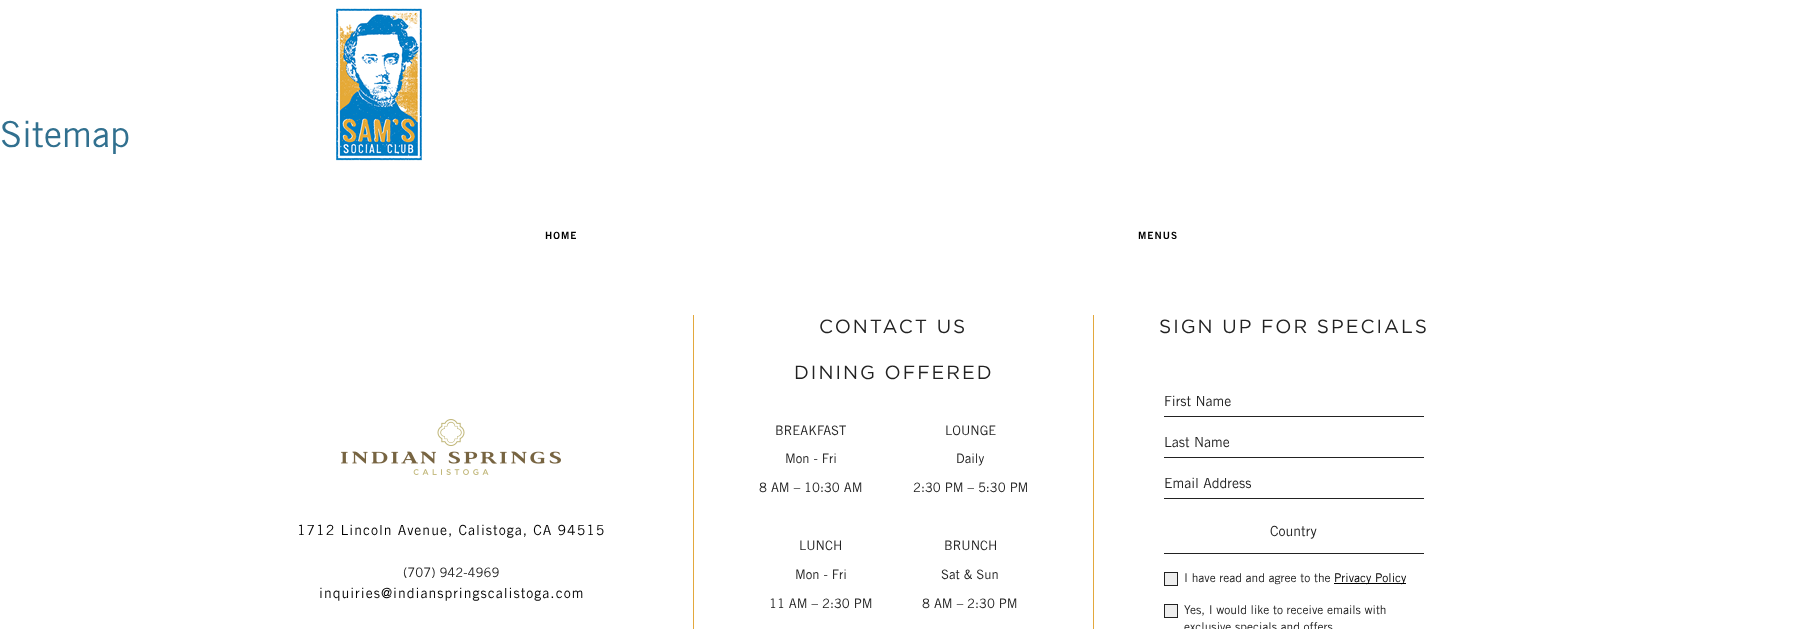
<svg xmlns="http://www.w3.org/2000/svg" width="1794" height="629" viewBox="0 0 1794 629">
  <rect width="100%" height="100%" fill="rgb(255,255,255)"/>
  <image x="336" y="8" width="87" height="153" href="pic1.png"/>
  <text x="0" y="147" font-family="Trade Gothic" font-size="36" fill="rgb(49,112,143)">Sitemap</text>
  <g font-family="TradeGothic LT" font-size="10" font-weight="bold" letter-spacing="1" fill="rgb(0,0,0)">
    <text x="545" y="239">HOME</text>
    <text x="1138" y="239">MENUS</text>
  </g>
  <image x="341" y="419" width="220" height="56" href="pic2.png"/>
  <text x="297" y="535" font-family="Trade Gothic" font-size="14" letter-spacing="1" fill="rgb(0,0,0)">1712 Lincoln Avenue, Calistoga, CA 94515</text>
  <text x="403" y="577" font-family="Trade Gothic" font-size="13" fill="rgb(34,34,34)">(707) 942-4969</text>
  <text x="319" y="598" font-family="Trade Gothic" font-size="14" letter-spacing="1" fill="rgb(0,0,0)">inquiries@indianspringscalistoga.com</text>
  <rect x="693" y="315" width="1" height="314" fill="rgb(227,168,61)"/>
  <g font-family="Gotham" font-size="19" letter-spacing="2" fill="rgb(34,34,34)">
    <text x="819" y="333">CONTACT US</text>
    <text x="794" y="379">DINING OFFERED</text>
  </g>
  <g font-family="Trade Gothic" font-size="13" fill="rgb(34,34,34)">
    <text x="775" y="435">BREAKFAST</text>
    <text x="785" y="463">Mon - Fri</text>
    <text x="759" y="492">8 AM – 10:30 AM</text>
    <text x="945" y="435">LOUNGE</text>
    <text x="956" y="463">Daily</text>
    <text x="913" y="492">2:30 PM – 5:30 PM</text>
    <text x="799" y="550">LUNCH</text>
    <text x="795" y="579">Mon - Fri</text>
    <text x="769" y="608">11 AM – 2:30 PM</text>
    <text x="944" y="550">BRUNCH</text>
    <text x="941" y="579">Sat &amp; Sun</text>
    <text x="922" y="608">8 AM – 2:30 PM</text>
  </g>
  <rect x="1093" y="315" width="1" height="314" fill="rgb(227,168,61)"/>
  <text x="1159" y="333" font-family="Gotham" font-size="19" letter-spacing="2" fill="rgb(34,34,34)">SIGN UP FOR SPECIALS</text>
  <rect x="1164" y="416" width="260" height="1" fill="rgb(34,34,34)"/>
  <text x="1164" y="406" font-family="Trade Gothic" font-size="14" fill="rgb(34,34,34)">First Name</text>
  <rect x="1164" y="457" width="260" height="1" fill="rgb(34,34,34)"/>
  <text x="1164" y="447" font-family="Trade Gothic" font-size="14" fill="rgb(34,34,34)">Last Name</text>
  <rect x="1164" y="498" width="260" height="1" fill="rgb(34,34,34)"/>
  <text x="1164" y="488" font-family="Trade Gothic" font-size="14" fill="rgb(34,34,34)">Email Address</text>
  <rect x="1164" y="553" width="260" height="1" fill="rgb(34,34,34)"/>
  <text x="1270" y="536" font-family="Trade Gothic" font-size="14" fill="rgb(34,34,34)">Country</text>
  <rect x="1164.5" y="572.5" width="13" height="13" fill="rgb(238,238,238)" stroke="rgb(34,34,34)"/>
  <text x="1184" y="582" font-family="Trade Gothic" font-size="12" fill="rgb(34,34,34)">I have read and agree to the</text>
  <rect x="1334" y="583" width="72" height="1" fill="rgb(0,0,0)"/>
  <text x="1334" y="582" font-family="Trade Gothic" font-size="12" fill="rgb(0,0,0)">Privacy Policy</text>
  <rect x="1164.5" y="604.5" width="13" height="13" fill="rgb(238,238,238)" stroke="rgb(34,34,34)"/>
  <g font-family="Trade Gothic" font-size="12" fill="rgb(34,34,34)">
    <text>
      <tspan x="1184" y="614">Yes, I would like to receive emails with</tspan>
      <tspan x="1184" y="631">exclusive specials and offers</tspan>
    </text>
  </g>
</svg>
